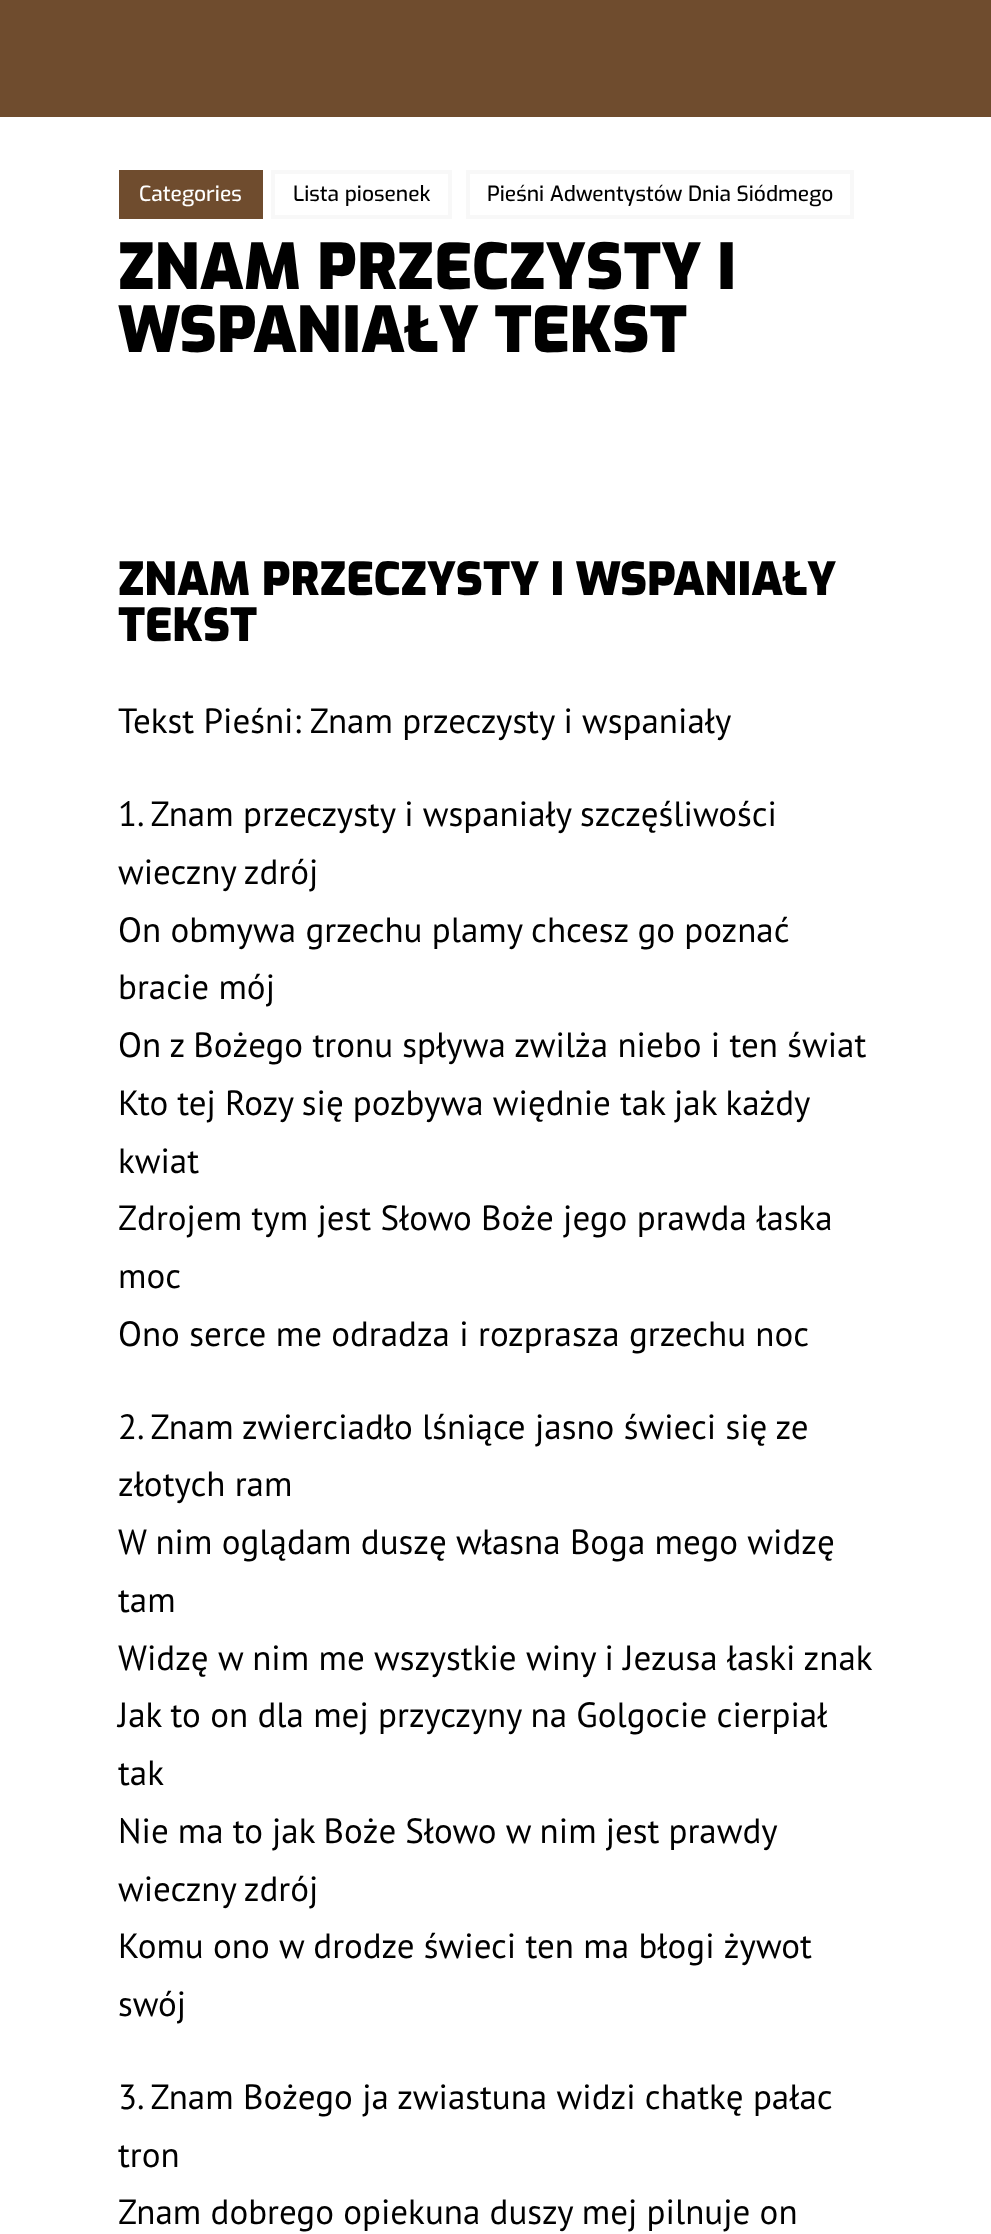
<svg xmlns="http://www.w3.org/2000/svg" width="991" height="2234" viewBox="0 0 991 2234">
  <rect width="100%" height="100%" fill="rgb(111,76,46)"/>
  <rect x="0" y="117" width="991" height="2117" fill="rgb(255,255,255)"/>
  <rect x="119" y="170" width="144" height="49" fill="rgb(111,76,46)"/>
  <text x="139" y="201" font-family="Exo" font-size="21" font-weight="500" fill="rgb(255,255,255)">Categories</text>
  <rect x="273" y="172" width="177" height="45" fill="none" stroke="rgb(248,248,248)" stroke-width="4"/>
  <text x="293" y="201" font-family="Exo" font-size="21" font-weight="500" fill="rgb(0,0,0)">Lista piosenek</text>
  <rect x="468" y="172" width="384" height="45" fill="none" stroke="rgb(248,248,248)" stroke-width="4"/>
  <text x="487" y="201" font-family="Exo" font-size="21" font-weight="500" fill="rgb(0,0,0)">Pieśni Adwentystów Dnia Siódmego</text>
  <g font-family="Exo" font-size="63" font-weight="900" fill="rgb(0,0,0)">
    <text>
      <tspan x="118" y="289">ZNAM PRZECZYSTY I</tspan>
      <tspan x="118" y="352">WSPANIAŁY TEKST</tspan>
    </text>
  </g>
  <g font-family="Exo" font-size="45.5" font-weight="900" fill="rgb(0,0,0)">
    <text>
      <tspan x="118" y="595">ZNAM PRZECZYSTY I WSPANIAŁY</tspan>
      <tspan x="118" y="641">TEKST</tspan>
    </text>
  </g>
  <g font-family="PT Sans" font-size="35" fill="rgb(0,0,0)">
    <text x="118" y="733">Tekst Pieśni: Znam przeczysty i wspaniały</text>
    <text>
      <tspan x="118" y="826">1. Znam przeczysty i wspaniały szczęśliwości</tspan>
      <tspan x="118" y="884">wieczny zdrój</tspan>
      <tspan x="118" y="942">On obmywa grzechu plamy chcesz go poznać</tspan>
      <tspan x="118" y="999">bracie mój</tspan>
      <tspan x="118" y="1057">On z Bożego tronu spływa zwilża niebo i ten świat</tspan>
      <tspan x="118" y="1115" word-spacing="-0.25">Kto tej Rozy się pozbywa więdnie tak jak każdy</tspan>
      <tspan x="118" y="1173">kwiat</tspan>
      <tspan x="118" y="1230">Zdrojem tym jest Słowo Boże jego prawda łaska</tspan>
      <tspan x="118" y="1288">moc</tspan>
      <tspan x="118" y="1346">Ono serce me odradza i rozprasza grzechu noc</tspan>
    </text>
    <text>
      <tspan x="118" y="1439">2. Znam zwierciadło lśniące jasno świeci się ze</tspan>
      <tspan x="118" y="1496">złotych ram</tspan>
      <tspan x="118" y="1554">W nim oglądam duszę własna Boga mego widzę</tspan>
      <tspan x="118" y="1612">tam</tspan>
      <tspan x="118" y="1670">Widzę w nim me wszystkie winy i Jezusa łaski znak</tspan>
      <tspan x="118" y="1727">Jak to on dla mej przyczyny na Golgocie cierpiał</tspan>
      <tspan x="118" y="1785">tak</tspan>
      <tspan x="118" y="1843" word-spacing="-0.25">Nie ma to jak Boże Słowo w nim jest prawdy</tspan>
      <tspan x="118" y="1901">wieczny zdrój</tspan>
      <tspan x="118" y="1958">Komu ono w drodze świeci ten ma błogi żywot</tspan>
      <tspan x="118" y="2016">swój</tspan>
    </text>
    <text>
      <tspan x="118" y="2109">3. Znam Bożego ja zwiastuna widzi chatkę pałac</tspan>
      <tspan x="118" y="2167">tron</tspan>
      <tspan x="118" y="2224">Znam dobrego opiekuna duszy mej pilnuje on</tspan>
    </text>
  </g>
</svg>
